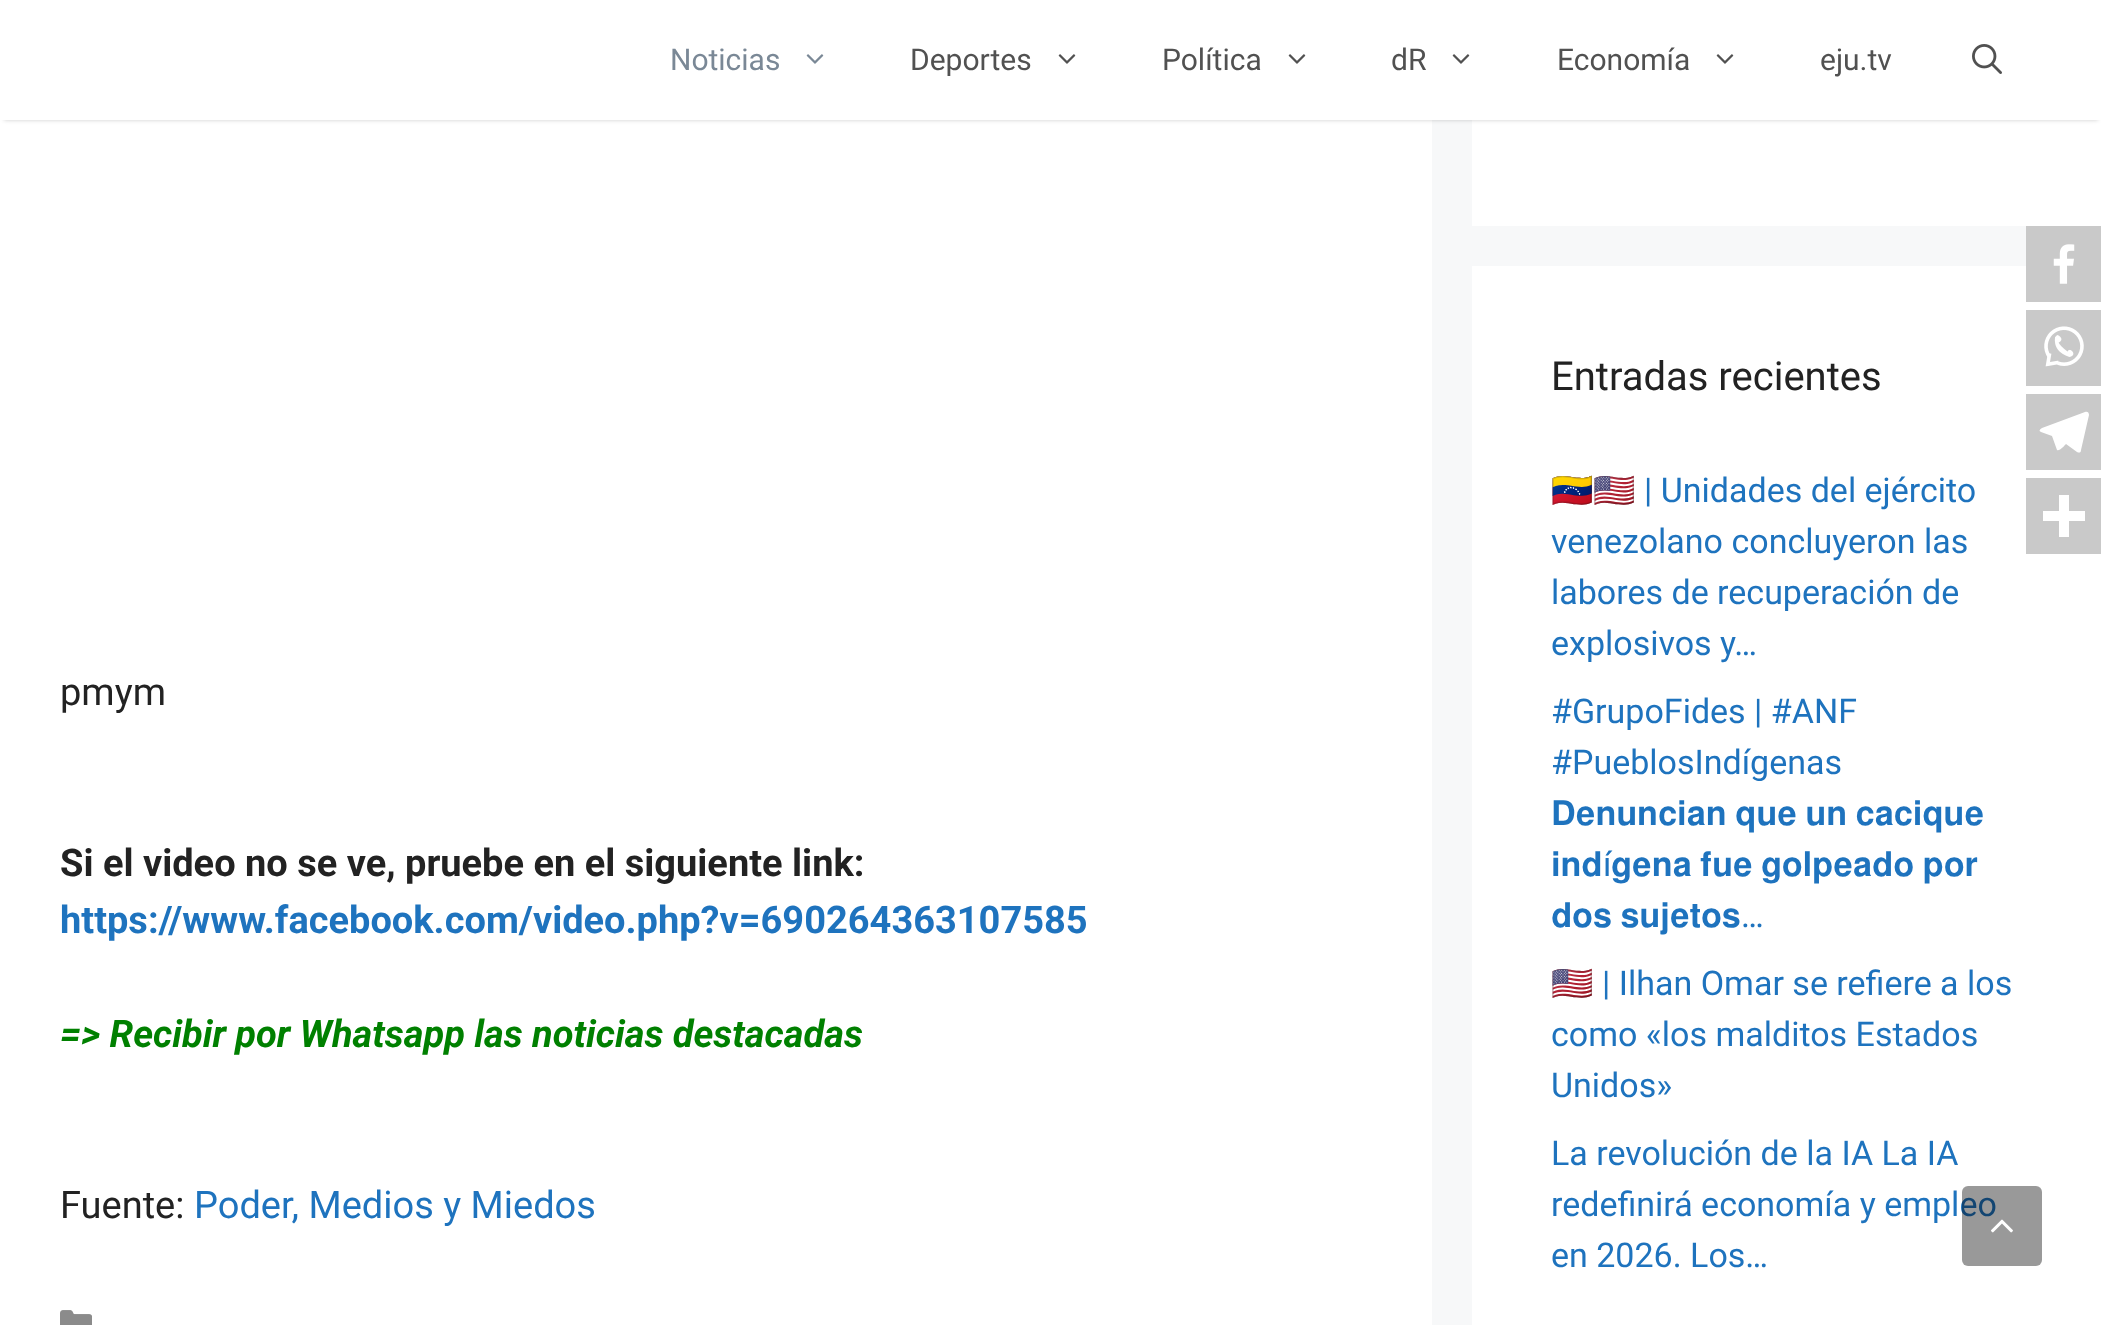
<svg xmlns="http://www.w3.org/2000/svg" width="2101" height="1325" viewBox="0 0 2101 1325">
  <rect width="100%" height="100%" fill="rgb(247,248,249)"/>
  <rect x="0" y="120" width="1432" height="1205" fill="rgb(255,255,255)"/>
  <rect x="1472" y="120" width="629" height="106" fill="rgb(255,255,255)"/>
  <rect x="4" y="8" width="2094" height="112" fill="rgba(0,0,0,0.2)" filter="blur(2px)"/>
  <rect x="0" y="0" width="2101" height="120" fill="rgb(255,255,255)"/>
  <text x="670" y="70" font-family="Roboto" font-size="30" fill="rgb(122,136,150)">Noticias</text>
  <image x="806" y="54" width="18" height="10" href="pic1.png"/>
  <text x="910" y="70" font-family="Roboto" font-size="30" fill="rgb(81,81,81)">Deportes</text>
  <image x="1058" y="54" width="18" height="10" href="pic2.png"/>
  <text x="1162" y="70" font-family="Roboto" font-size="30" fill="rgb(81,81,81)">Política</text>
  <image x="1288" y="54" width="18" height="10" href="pic2.png"/>
  <text x="1391" y="70" font-family="Roboto" font-size="30" fill="rgb(81,81,81)">dR</text>
  <image x="1452" y="54" width="18" height="10" href="pic2.png"/>
  <text x="1557" y="70" font-family="Roboto" font-size="30" fill="rgb(81,81,81)">Economía</text>
  <image x="1716" y="54" width="18" height="10" href="pic2.png"/>
  <text x="1820" y="70" font-family="Roboto" font-size="30" fill="rgb(81,81,81)">eju.tv</text>
  <image x="1972" y="44" width="30" height="30" href="pic3.png"/>
  <rect x="1472" y="266" width="629" height="1059" fill="rgb(255,255,255)"/>
  <rect x="2026" y="226" width="75" height="76" fill="rgb(201,201,201)"/>
  <image x="2053" y="244" width="22" height="40" href="pic4.png"/>
  <rect x="2026" y="310" width="75" height="76" fill="rgb(201,201,201)"/>
  <image x="2044" y="326" width="40" height="41" href="pic5.png"/>
  <rect x="2026" y="394" width="75" height="76" fill="rgb(201,201,201)"/>
  <path d="M2085 412L2042 428C2039 430 2039 431 2041 432L2052 436L2057 450C2059 452 2065 445 2066 444L2077 452C2079 453 2081 453 2081 450L2089 415C2089 412 2087 411 2085 412Z" fill="rgb(255,255,255)"/>
  <rect x="2026" y="478" width="75" height="76" fill="rgb(201,201,201)"/>
  <path d="M2069 511V495H2059V511H2043V521H2059V537H2069V521H2085V511Z" fill="rgb(255,255,255)" fill-rule="evenodd"/>
  <text x="60" y="705" font-family="Roboto" font-size="38" fill="rgb(34,34,34)">pmym</text>
  <text x="60" y="876" font-family="Roboto" font-size="38" font-weight="bold" fill="rgb(34,34,34)">Si el video no se ve, pruebe en el siguiente link:</text>
  <text x="60" y="933" font-family="Roboto" font-size="38" font-weight="bold" fill="rgb(30,115,190)">https://www.facebook.com/video.php?v=690264363107585</text>
  <text x="60" y="1047" font-family="Roboto" font-size="38" font-weight="bold" font-style="italic" fill="rgb(0,128,0)">=&gt; Recibir por Whatsapp las noticias destacadas</text>
  <text x="60" y="1218" font-family="Roboto" font-size="38" fill="rgb(34,34,34)">Fuente:</text>
  <text x="194" y="1218" font-family="Roboto" font-size="38" fill="rgb(30,115,190)">Poder, Medios y Miedos</text>
  <image x="60" y="1310" width="32" height="15" href="pic6.png"/>
  <text x="1551" y="390" font-family="Roboto" font-size="40" fill="rgb(34,34,34)">Entradas recientes</text>
  <text x="1551" y="502" font-family="Noto Color Emoji" font-size="34" fill="rgb(30,115,190)">🇻🇪🇺🇸</text>
  <g font-family="Roboto" font-size="34" fill="rgb(30,115,190)">
    <text x="1644" y="502">| Unidades del ejército</text>
    <text>
      <tspan x="1551" y="553">venezolano concluyeron las</tspan>
      <tspan x="1551" y="604">labores de recuperación de</tspan>
      <tspan x="1551" y="655">explosivos y…</tspan>
    </text>
    <text>
      <tspan x="1551" y="723">#GrupoFides | #ANF</tspan>
      <tspan x="1551" y="774">#PueblosIndígenas</tspan>
    </text>
  </g>
  <g font-family="FreeSans" font-size="34" fill="rgb(30,115,190)">
    <text>
      <tspan x="1551" y="825">𝐃𝐞𝐧𝐮𝐧𝐜𝐢𝐚𝐧 𝐪𝐮𝐞 𝐮𝐧 𝐜𝐚𝐜𝐢𝐪𝐮𝐞</tspan>
      <tspan x="1551" y="876">𝐢𝐧𝐝</tspan>
    </text>
  </g>
  <text x="1603" y="876" font-family="Roboto" font-size="34" fill="rgb(30,115,190)">í</text>
  <g font-family="FreeSans" font-size="34" fill="rgb(30,115,190)">
    <text x="1611" y="876">𝐠𝐞𝐧𝐚 𝐟𝐮𝐞 𝐠𝐨𝐥𝐩𝐞𝐚𝐝𝐨 𝐩𝐨𝐫</text>
    <text x="1551" y="927">𝐝𝐨𝐬 𝐬𝐮𝐣𝐞𝐭𝐨𝐬</text>
  </g>
  <text x="1741" y="927" font-family="Roboto" font-size="34" fill="rgb(30,115,190)">…</text>
  <text x="1551" y="995" font-family="Noto Color Emoji" font-size="34" fill="rgb(30,115,190)">🇺🇸</text>
  <g font-family="Roboto" font-size="34" fill="rgb(30,115,190)">
    <text x="1602" y="995">| Ilhan Omar se refiere a los</text>
    <text>
      <tspan x="1551" y="1046">como «los malditos Estados</tspan>
      <tspan x="1551" y="1097">Unidos»</tspan>
    </text>
    <text>
      <tspan x="1551" y="1165">La revolución de la IA La IA</tspan>
      <tspan x="1551" y="1216">redefinirá economía y empleo</tspan>
      <tspan x="1551" y="1267">en 2026. Los…</tspan>
    </text>
  </g>
  <rect x="1962" y="1186" width="80" height="80" rx="6" fill="rgba(0,0,0,0.4)"/>
  <image x="1991" y="1219" width="22" height="14" href="pic7.png"/>
</svg>
